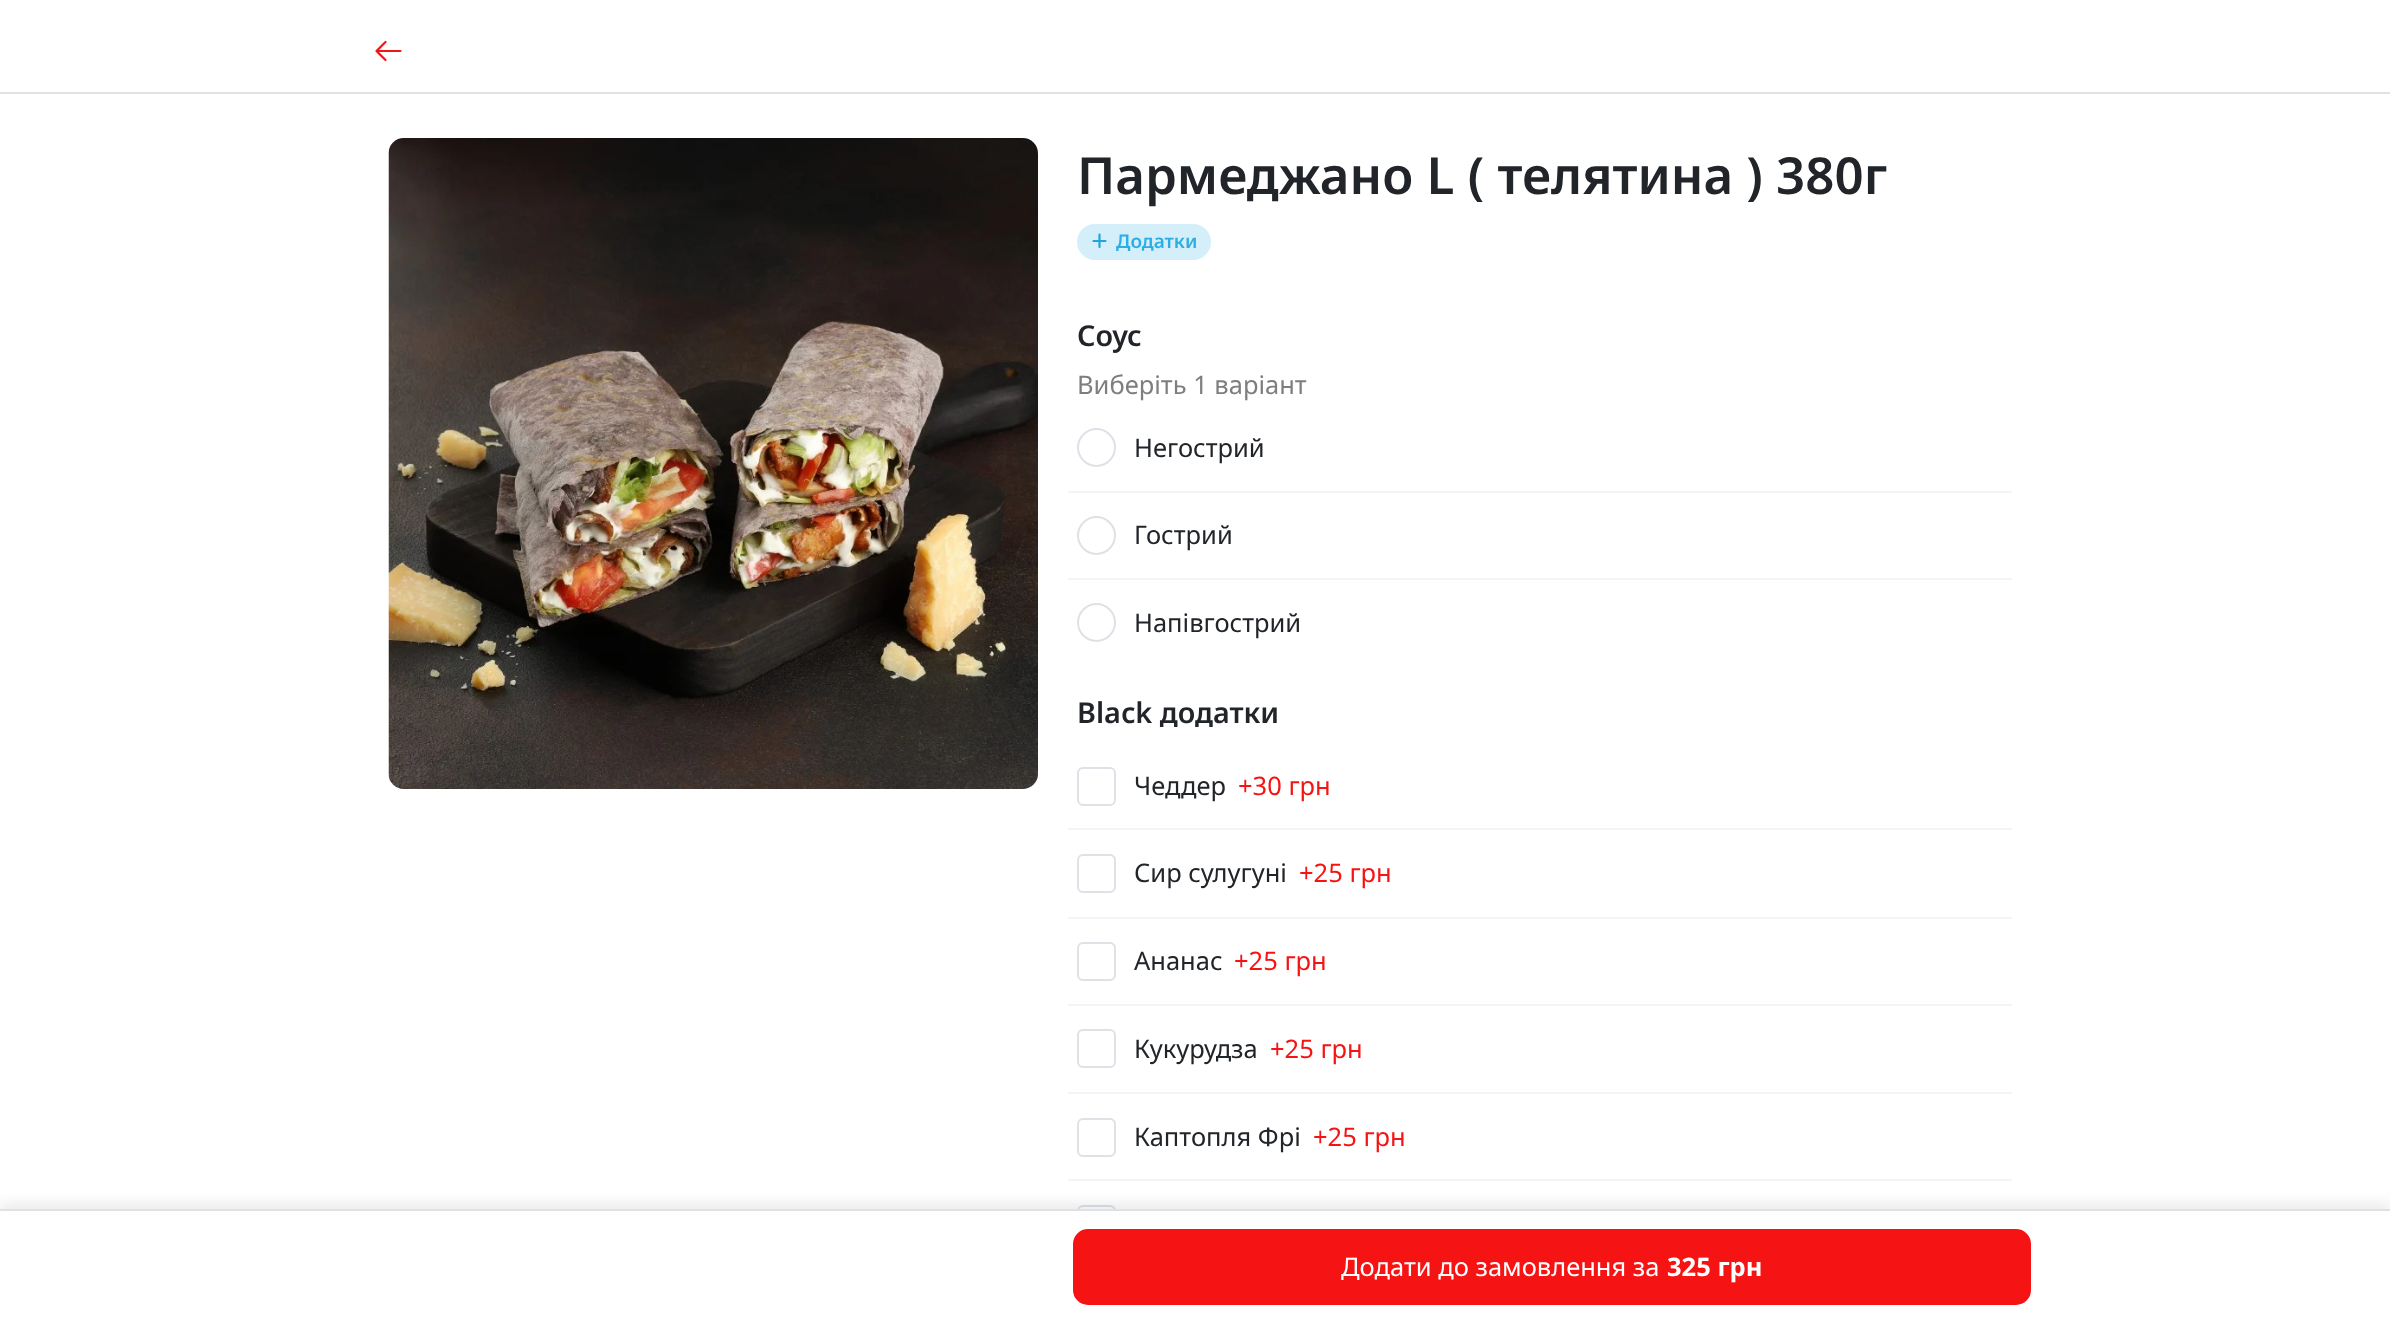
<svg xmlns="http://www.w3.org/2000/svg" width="2390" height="1328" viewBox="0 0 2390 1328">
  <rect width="100%" height="100%" fill="rgb(255,255,255)"/>
  <rect x="0" y="92" width="2390" height="2" fill="rgb(222,226,230)"/>
  <path d="M400.5 51H376.5M376.5 51L385.5 42M376.5 51L385.5 60" fill="none" stroke="rgb(246,19,19)" stroke-width="2.2" stroke-linecap="round" stroke-linejoin="round"/>
  <rect x="389" y="138" width="649" height="651" rx="15" fill="rgb(245,244,244)"/>
  <image x="388" y="138" width="650" height="651" href="pic1.png"/>
  <text x="1077" y="194" font-family="Noto Sans" font-size="51" font-weight="600" fill="rgb(33,37,41)">Пармеджано L ( телятина ) 380г</text>
  <rect x="1077" y="224" width="134" height="36" rx="18" fill="rgb(212,239,250)"/>
  <path d="M1099.5 234.5V247M1093.5 241H1105.5" fill="none" stroke="rgb(34,164,217)" stroke-width="2.2" stroke-linecap="round" stroke-linejoin="round"/>
  <text x="1116" y="248" font-family="Noto Sans" font-size="19" font-weight="600" fill="rgb(42,174,228)">Додатки</text>
  <text x="1077" y="346" font-family="Noto Sans" font-size="28.75" font-weight="600" fill="rgb(33,37,41)">Соус</text>
  <text x="1077" y="394" font-family="Noto Sans" font-size="25.5" fill="rgb(126,126,126)">Виберіть 1 варіант</text>
  <rect x="1068" y="491" width="944" height="2" fill="rgb(244,244,244)"/>
  <circle cx="1096.5" cy="447.5" r="18.5" fill="none" stroke="rgb(222,226,230)" stroke-width="2"/>
  <text x="1134" y="457" font-family="Noto Sans" font-size="25.5" fill="rgb(33,37,41)">Негострий</text>
  <rect x="1068" y="578" width="944" height="2" fill="rgb(244,244,244)"/>
  <circle cx="1096.5" cy="535.5" r="18.5" fill="none" stroke="rgb(222,226,230)" stroke-width="2"/>
  <text x="1134" y="544" font-family="Noto Sans" font-size="25.5" fill="rgb(33,37,41)">Гострий</text>
  <circle cx="1096.5" cy="622.5" r="18.5" fill="none" stroke="rgb(222,226,230)" stroke-width="2"/>
  <text x="1134" y="632" font-family="Noto Sans" font-size="25.5" fill="rgb(33,37,41)">Напівгострий</text>
  <text x="1077" y="723" font-family="Noto Sans" font-size="28.75" font-weight="600" fill="rgb(33,37,41)">Black додатки</text>
  <rect x="1068" y="828" width="944" height="2" fill="rgb(244,244,244)"/>
  <rect x="1078" y="768" width="37" height="37" rx="5" fill="none" stroke="rgb(222,226,230)" stroke-width="2"/>
  <text x="1134" y="795" font-family="Noto Sans" font-size="25.5" fill="rgb(33,37,41)">Чеддер</text>
  <text x="1238" y="795" font-family="Noto Sans" font-size="25.5" fill="rgb(246,19,19)">+30 грн</text>
  <rect x="1068" y="917" width="944" height="2" fill="rgb(244,244,244)"/>
  <rect x="1078" y="855" width="37" height="37" rx="5" fill="none" stroke="rgb(222,226,230)" stroke-width="2"/>
  <text x="1134" y="882" font-family="Noto Sans" font-size="25.5" fill="rgb(33,37,41)">Сир сулугуні</text>
  <text x="1299" y="882" font-family="Noto Sans" font-size="25.5" fill="rgb(246,19,19)">+25 грн</text>
  <rect x="1068" y="1004" width="944" height="2" fill="rgb(244,244,244)"/>
  <rect x="1078" y="943" width="37" height="37" rx="5" fill="none" stroke="rgb(222,226,230)" stroke-width="2"/>
  <text x="1134" y="970" font-family="Noto Sans" font-size="25.5" fill="rgb(33,37,41)">Ананас</text>
  <text x="1234" y="970" font-family="Noto Sans" font-size="25.5" fill="rgb(246,19,19)">+25 грн</text>
  <rect x="1068" y="1092" width="944" height="2" fill="rgb(244,244,244)"/>
  <rect x="1078" y="1030" width="37" height="37" rx="5" fill="none" stroke="rgb(222,226,230)" stroke-width="2"/>
  <text x="1134" y="1058" font-family="Noto Sans" font-size="25.5" fill="rgb(33,37,41)">Кукурудза</text>
  <text x="1270" y="1058" font-family="Noto Sans" font-size="25.5" fill="rgb(246,19,19)">+25 грн</text>
  <rect x="1068" y="1179" width="944" height="2" fill="rgb(244,244,244)"/>
  <rect x="1078" y="1119" width="37" height="37" rx="5" fill="none" stroke="rgb(222,226,230)" stroke-width="2"/>
  <text x="1134" y="1146" font-family="Noto Sans" font-size="25.5" fill="rgb(33,37,41)">Каптопля Фрі</text>
  <text x="1313" y="1146" font-family="Noto Sans" font-size="25.5" fill="rgb(246,19,19)">+25 грн</text>
  <rect x="1078" y="1206" width="37" height="37" rx="5" fill="none" stroke="rgb(222,226,230)" stroke-width="2"/>
  <rect x="0" y="1203" width="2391" height="120" fill="rgba(0,0,0,0.08)" filter="blur(6.5px)"/>
  <rect x="0" y="1211" width="2390" height="117" fill="rgb(255,255,255)"/>
  <rect x="0" y="1209" width="2390" height="2" fill="rgb(222,226,230)"/>
  <rect x="1074" y="1230" width="956" height="74" rx="14" fill="rgb(246,19,19)" stroke="rgb(246,19,19)" stroke-width="2"/>
  <text x="1341" y="1276" font-family="Noto Sans" font-size="25.5" fill="rgb(255,255,255)">Додати до замовлення за</text>
  <text x="1667" y="1276" font-family="Noto Sans" font-size="25.5" font-weight="bold" fill="rgb(255,255,255)">325 грн</text>
</svg>
